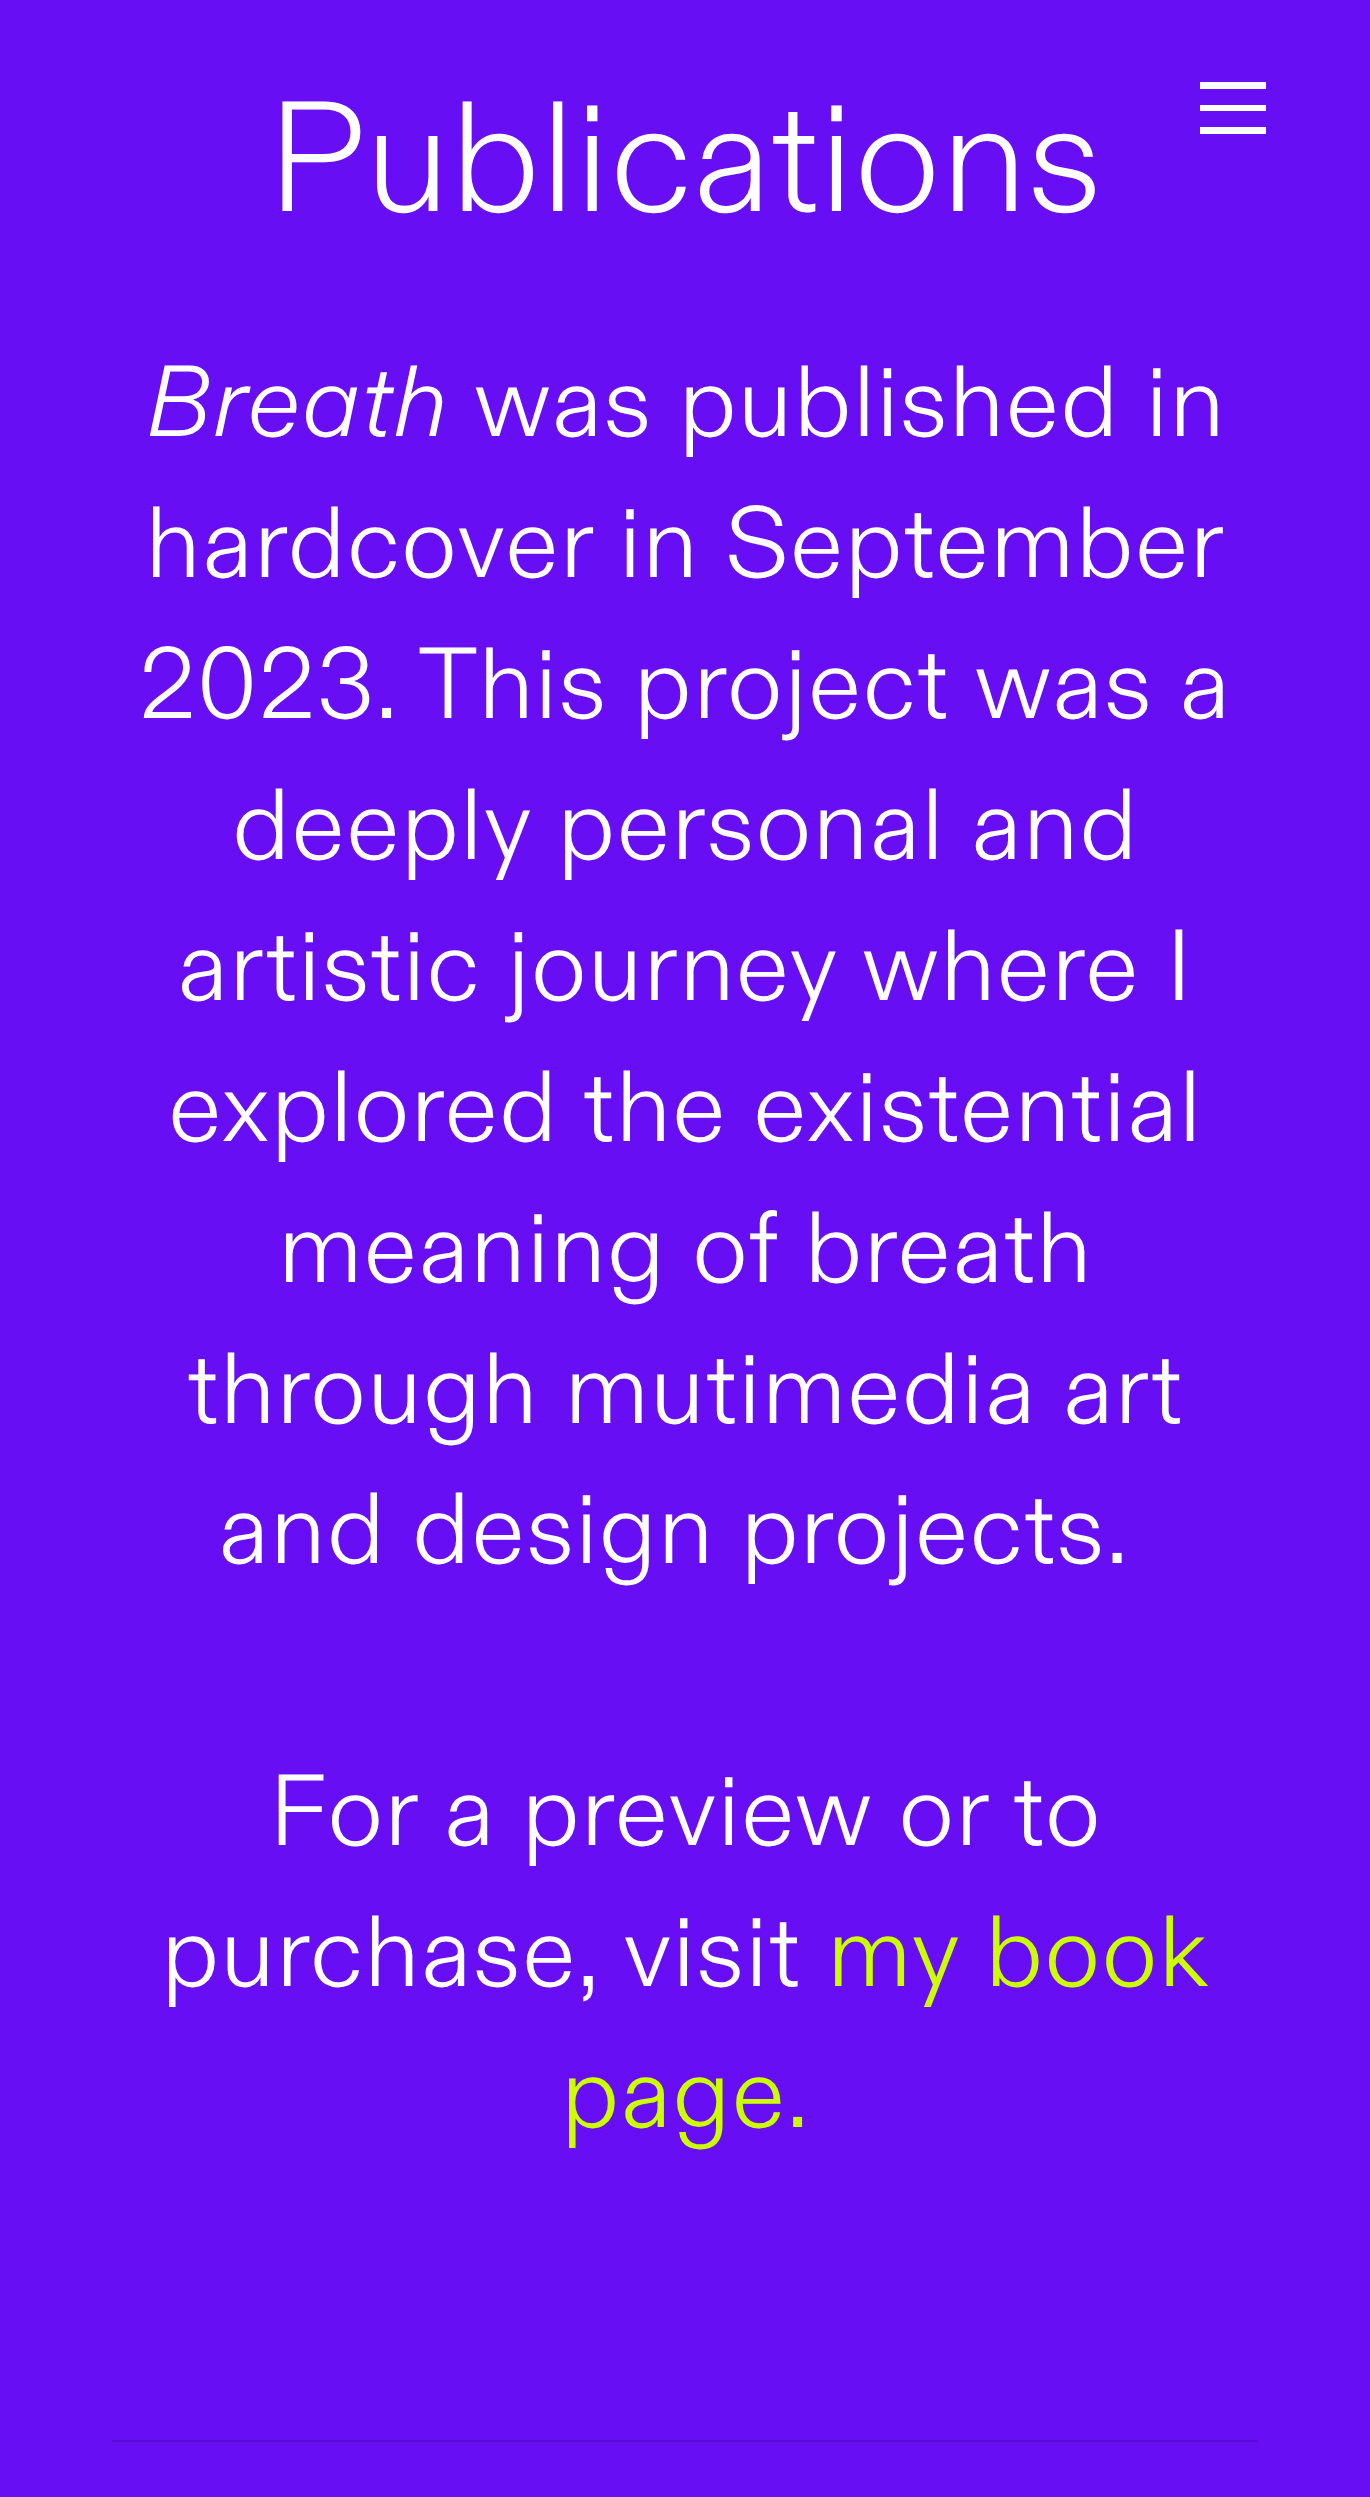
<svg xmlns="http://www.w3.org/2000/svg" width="1370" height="2497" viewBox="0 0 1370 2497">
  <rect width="100%" height="100%" fill="rgb(103,14,245)"/>
  <text x="267" y="211" font-family="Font" font-size="156.5" font-weight="300" fill="rgb(255,255,255)">Publications</text>
  <text x="145" y="436" font-family="Font" font-size="100.6" font-weight="300" font-style="italic" letter-spacing="1" fill="rgb(255,255,255)">Breath</text>
  <g font-family="'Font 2'" font-size="100.6" font-weight="300" letter-spacing="1" fill="rgb(255,255,255)">
    <text x="474" y="436">was published in</text>
    <text x="145" y="577">hardcover in September</text>
    <text x="139" y="718">2023. This project was a</text>
    <text x="232" y="859">deeply personal and</text>
    <text x="177" y="1000">artistic journey where I</text>
    <text x="168" y="1141">explored the existential</text>
    <text x="278" y="1282">meaning of breath</text>
    <text x="187" y="1423">through mutimedia art</text>
    <text x="218" y="1563">and design projects.</text>
    <text x="269" y="1845">For a preview or to</text>
    <text x="161" y="1986">purchase, visit</text>
  </g>
  <g font-family="'Font 2'" font-size="100.6" font-weight="300" letter-spacing="1" fill="rgb(204,255,0)">
    <text x="827" y="1986">my book</text>
    <text x="561" y="2127">page.</text>
  </g>
  <rect x="112" y="2440" width="1146" height="2" fill="rgb(87,12,206)"/>
  <path d="M1266 82V89H1200V82ZM1266 105V111H1200V105ZM1266 127V134H1200V127Z" fill="rgb(255,255,255)"/>
</svg>
